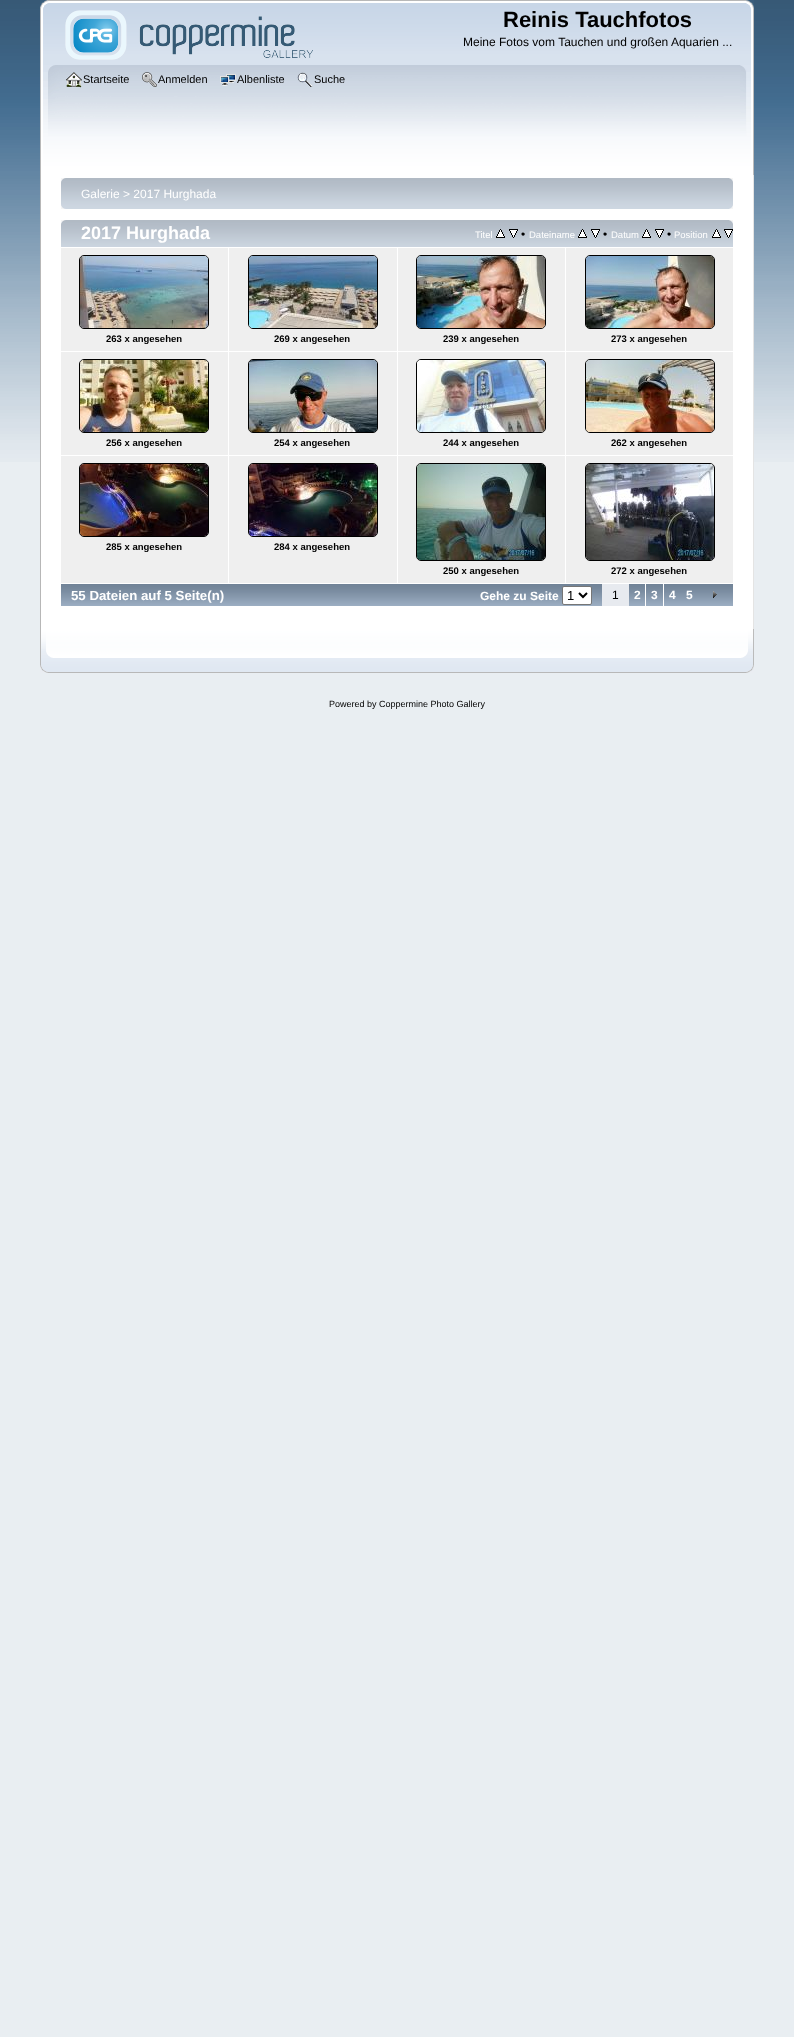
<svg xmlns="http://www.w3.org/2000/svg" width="794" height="2037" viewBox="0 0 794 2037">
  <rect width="100%" height="100%" fill="rgb(233,238,242)"/>
  <image x="0" y="0" width="794" height="462" href="pic1.png"/>
  <image x="40" y="0" width="706" height="65" href="pic2.png"/>
  <image x="746" y="0" width="8" height="65" href="pic3.png"/>
  <image x="65" y="10" width="248" height="50" href="pic4.png"/>
  <text x="503" y="27" font-family="Liberation Sans" font-size="22" font-weight="bold" fill="rgb(0,0,0)">Reinis Tauchfotos</text>
  <text x="463" y="46" font-family="Liberation Sans" font-size="12" fill="rgb(0,0,0)">Meine Fotos vom Tauchen und großen Aquarien ...</text>
  <image x="40" y="65" width="700" height="110" href="pic5.png"/>
  <image x="740" y="65" width="14" height="110" href="pic6.png"/>
  <image x="66" y="72" width="16" height="16" href="pic7.png"/>
  <text x="83" y="83" font-family="Liberation Sans" font-size="11" fill="rgb(0,0,0)">Startseite</text>
  <image x="142" y="72" width="15" height="15" href="pic8.png"/>
  <text x="158" y="83" font-family="Liberation Sans" font-size="11" fill="rgb(0,0,0)">Anmelden</text>
  <image x="220" y="74" width="16" height="12" href="pic9.png"/>
  <text x="237" y="83" font-family="Liberation Sans" font-size="11" fill="rgb(0,0,0)">Albenliste</text>
  <image x="297" y="72" width="16" height="15" href="pic10.png"/>
  <text x="314" y="83" font-family="Liberation Sans" font-size="11" fill="rgb(0,0,0)">Suche</text>
  <rect x="41" y="175" width="712" height="454" fill="rgb(255,255,255)"/>
  <rect x="40" y="175" width="1" height="454" fill="rgb(183,183,183)"/>
  <rect x="753" y="175" width="1" height="454" fill="rgb(228,228,228)"/>
  <image x="61" y="178" width="668" height="31" href="pic11.png"/>
  <image x="729" y="178" width="4" height="31" href="pic12.png"/>
  <text x="81" y="198" font-family="Liberation Sans" font-size="12" fill="rgb(255,255,255)">Galerie &gt; 2017 Hurghada</text>
  <image x="61" y="220" width="672" height="27" href="pic13.png"/>
  <image x="729" y="220" width="4" height="4" href="pic14.png"/>
  <text x="81" y="239" font-family="Liberation Sans" font-size="18" font-weight="bold" fill="rgb(255,255,255)">2017 Hurghada</text>
  <text x="475" y="238" font-family="Liberation Sans" font-size="9.5" fill="rgb(255,255,255)">Titel</text>
  <image x="496" y="229" width="9" height="9" href="pic15.png"/>
  <image x="509" y="229" width="9" height="9" href="pic16.png"/>
  <text x="521" y="238" font-family="Liberation Sans" font-size="12" fill="rgb(0,0,0)">•</text>
  <text x="529" y="238" font-family="Liberation Sans" font-size="9.5" fill="rgb(255,255,255)">Dateiname</text>
  <image x="578" y="229" width="9" height="9" href="pic15.png"/>
  <image x="591" y="229" width="9" height="9" href="pic16.png"/>
  <text x="603" y="238" font-family="Liberation Sans" font-size="12" fill="rgb(0,0,0)">•</text>
  <text x="611" y="238" font-family="Liberation Sans" font-size="9.5" fill="rgb(255,255,255)">Datum</text>
  <image x="642" y="229" width="9" height="9" href="pic15.png"/>
  <image x="655" y="229" width="9" height="9" href="pic16.png"/>
  <text x="667" y="238" font-family="Liberation Sans" font-size="12" fill="rgb(0,0,0)">•</text>
  <text x="674" y="238" font-family="Liberation Sans" font-size="9.5" fill="rgb(255,255,255)">Position</text>
  <image x="712" y="229" width="9" height="9" href="pic15.png"/>
  <image x="724" y="229" width="9" height="9" href="pic16.png"/>
  <rect x="61" y="248" width="167" height="103" fill="rgb(239,239,239)"/>
  <rect x="79.5" y="255.5" width="129" height="73" rx="4.5" fill="none" stroke="rgb(0,0,0)"/>
  <image x="80" y="256" width="128" height="72" href="pic17.png"/>
  <text x="106" y="342" font-family="Liberation Sans" font-size="9.5" font-weight="bold" fill="rgb(0,0,0)">263 x angesehen</text>
  <rect x="229" y="248" width="168" height="103" fill="rgb(239,239,239)"/>
  <rect x="248.5" y="255.5" width="129" height="73" rx="4.5" fill="none" stroke="rgb(0,0,0)"/>
  <image x="249" y="256" width="128" height="72" href="pic18.png"/>
  <text x="274" y="342" font-family="Liberation Sans" font-size="9.5" font-weight="bold" fill="rgb(0,0,0)">269 x angesehen</text>
  <rect x="398" y="248" width="167" height="103" fill="rgb(239,239,239)"/>
  <rect x="416.5" y="255.5" width="129" height="73" rx="4.5" fill="none" stroke="rgb(0,0,0)"/>
  <image x="417" y="256" width="128" height="72" href="pic19.png"/>
  <text x="443" y="342" font-family="Liberation Sans" font-size="9.5" font-weight="bold" fill="rgb(0,0,0)">239 x angesehen</text>
  <rect x="566" y="248" width="167" height="103" fill="rgb(239,239,239)"/>
  <rect x="585.5" y="255.5" width="129" height="73" rx="4.5" fill="none" stroke="rgb(0,0,0)"/>
  <image x="586" y="256" width="128" height="72" href="pic20.png"/>
  <text x="611" y="342" font-family="Liberation Sans" font-size="9.5" font-weight="bold" fill="rgb(0,0,0)">273 x angesehen</text>
  <rect x="61" y="352" width="167" height="103" fill="rgb(239,239,239)"/>
  <rect x="79.5" y="359.5" width="129" height="73" rx="4.5" fill="none" stroke="rgb(0,0,0)"/>
  <image x="80" y="360" width="128" height="72" href="pic21.png"/>
  <text x="106" y="446" font-family="Liberation Sans" font-size="9.5" font-weight="bold" fill="rgb(0,0,0)">256 x angesehen</text>
  <rect x="229" y="352" width="168" height="103" fill="rgb(239,239,239)"/>
  <rect x="248.5" y="359.5" width="129" height="73" rx="4.5" fill="none" stroke="rgb(0,0,0)"/>
  <image x="249" y="360" width="128" height="72" href="pic22.png"/>
  <text x="274" y="446" font-family="Liberation Sans" font-size="9.5" font-weight="bold" fill="rgb(0,0,0)">254 x angesehen</text>
  <rect x="398" y="352" width="167" height="103" fill="rgb(239,239,239)"/>
  <rect x="416.5" y="359.5" width="129" height="73" rx="4.5" fill="none" stroke="rgb(0,0,0)"/>
  <image x="417" y="360" width="128" height="72" href="pic23.png"/>
  <text x="443" y="446" font-family="Liberation Sans" font-size="9.5" font-weight="bold" fill="rgb(0,0,0)">244 x angesehen</text>
  <rect x="566" y="352" width="167" height="103" fill="rgb(239,239,239)"/>
  <rect x="585.5" y="359.5" width="129" height="73" rx="4.5" fill="none" stroke="rgb(0,0,0)"/>
  <image x="586" y="360" width="128" height="72" href="pic24.png"/>
  <text x="611" y="446" font-family="Liberation Sans" font-size="9.5" font-weight="bold" fill="rgb(0,0,0)">262 x angesehen</text>
  <rect x="61" y="456" width="167" height="127" fill="rgb(239,239,239)"/>
  <rect x="79.5" y="463.5" width="129" height="73" rx="4.5" fill="none" stroke="rgb(0,0,0)"/>
  <image x="80" y="464" width="128" height="72" href="pic25.png"/>
  <text x="106" y="550" font-family="Liberation Sans" font-size="9.5" font-weight="bold" fill="rgb(0,0,0)">285 x angesehen</text>
  <rect x="229" y="456" width="168" height="127" fill="rgb(239,239,239)"/>
  <rect x="248.5" y="463.5" width="129" height="73" rx="4.5" fill="none" stroke="rgb(0,0,0)"/>
  <image x="249" y="464" width="128" height="72" href="pic26.png"/>
  <text x="274" y="550" font-family="Liberation Sans" font-size="9.5" font-weight="bold" fill="rgb(0,0,0)">284 x angesehen</text>
  <rect x="398" y="456" width="167" height="127" fill="rgb(239,239,239)"/>
  <rect x="416.5" y="463.5" width="129" height="97" rx="4.5" fill="none" stroke="rgb(0,0,0)"/>
  <image x="417" y="464" width="128" height="96" href="pic27.png"/>
  <text x="443" y="574" font-family="Liberation Sans" font-size="9.5" font-weight="bold" fill="rgb(0,0,0)">250 x angesehen</text>
  <rect x="566" y="456" width="167" height="127" fill="rgb(239,239,239)"/>
  <rect x="585.5" y="463.5" width="129" height="97" rx="4.5" fill="none" stroke="rgb(0,0,0)"/>
  <image x="586" y="464" width="128" height="96" href="pic28.png"/>
  <text x="611" y="574" font-family="Liberation Sans" font-size="9.5" font-weight="bold" fill="rgb(0,0,0)">272 x angesehen</text>
  <image x="61" y="584" width="419" height="22" href="pic29.png"/>
  <text x="71" y="600" font-family="Liberation Sans" font-size="13.25" font-weight="bold" fill="rgb(255,255,255)">55 Dateien auf 5 Seite(n)</text>
  <image x="480" y="584" width="122" height="22" href="pic30.png"/>
  <text x="480" y="600" font-family="Liberation Sans" font-size="12" font-weight="bold" fill="rgb(255,255,255)">Gehe zu Seite</text>
  <rect x="562.5" y="586.5" width="29" height="18" rx="1.5" fill="rgb(255,255,255)" stroke="rgb(118,118,118)"/>
  <path d="M579 593L583 597L587 593" fill="none" stroke="rgb(0,0,0)" stroke-width="2"/>
  <text x="567" y="600" font-family="Liberation Sans" font-size="13" fill="rgb(0,0,0)">1</text>
  <rect x="602" y="584" width="27" height="22" fill="rgb(231,234,239)"/>
  <text x="612" y="599" font-family="Liberation Sans" font-size="12" fill="rgb(0,0,0)">1</text>
  <image x="629" y="584" width="16" height="22" href="pic31.png"/>
  <text x="634" y="599" font-family="Liberation Sans" font-size="12" font-weight="bold" fill="rgb(255,255,255)">2</text>
  <image x="646" y="584" width="17" height="22" href="pic32.png"/>
  <text x="651" y="599" font-family="Liberation Sans" font-size="12" font-weight="bold" fill="rgb(255,255,255)">3</text>
  <image x="664" y="584" width="17" height="22" href="pic32.png"/>
  <text x="669" y="599" font-family="Liberation Sans" font-size="12" font-weight="bold" fill="rgb(255,255,255)">4</text>
  <image x="681" y="584" width="16" height="22" href="pic31.png"/>
  <text x="686" y="599" font-family="Liberation Sans" font-size="12" font-weight="bold" fill="rgb(255,255,255)">5</text>
  <image x="697" y="584" width="36" height="22" href="pic33.png"/>
  <image x="713" y="591" width="4" height="7" href="pic34.png"/>
  <image x="40" y="629" width="701" height="44" href="pic35.png"/>
  <image x="741" y="629" width="13" height="44" href="pic36.png"/>
  <text x="329" y="707" font-family="Liberation Sans" font-size="9" fill="rgb(0,0,0)">Powered by Coppermine Photo Gallery</text>
</svg>
